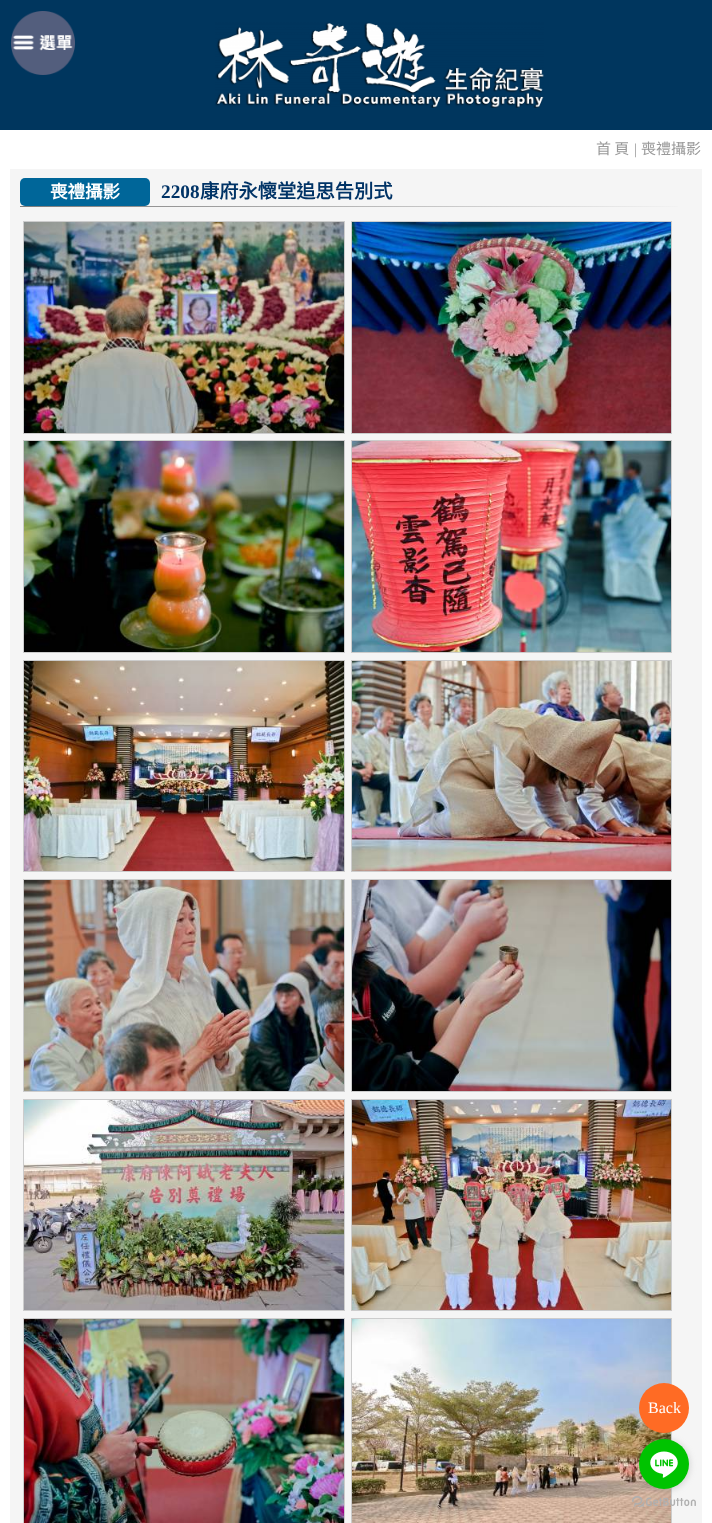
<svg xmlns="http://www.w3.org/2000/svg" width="712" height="1523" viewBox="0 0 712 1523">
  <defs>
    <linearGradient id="g1" gradientUnits="userSpaceOnUse" x1="20" y1="207" x2="692" y2="206"><stop offset="0" stop-color="rgb(124,124,124)"/><stop offset="1" stop-color="rgb(245,245,245)"/></linearGradient>
  </defs>
  <rect width="100%" height="100%" fill="rgb(255,255,255)"/>
  <rect x="0" y="0" width="712" height="130" fill="rgb(0,54,94)"/>
  <image x="215" y="22" width="329" height="86" href="pic1.png"/>
  <image x="11" y="11" width="64" height="64" href="pic2.png"/>
  <text x="596" y="154" font-family="Noto Sans CJK TC" font-size="15" fill="rgb(153,153,153)">首 頁</text>
  <text x="634" y="154" font-family="Liberation Serif" font-size="15" fill="rgb(153,153,153)">|</text>
  <text x="641" y="154" font-family="Noto Sans CJK TC" font-size="15" fill="rgb(153,153,153)">喪禮攝影</text>
  <rect x="10" y="169" width="692" height="1354" fill="rgb(245,245,245)"/>
  <rect x="20" y="178" width="130" height="28" rx="5" fill="rgb(0,102,153)"/>
  <text x="50" y="198" font-family="Noto Sans CJK TC" font-size="17.5" font-weight="bold" fill="rgb(255,255,255)">喪禮攝影</text>
  <text x="161" y="198" font-family="Liberation Serif" font-size="19.25" font-weight="bold" fill="rgb(0,51,102)">2208</text>
  <text x="200" y="198" font-family="Noto Sans CJK TC" font-size="19.25" font-weight="bold" fill="rgb(0,51,102)">康府永懷堂追思告別式</text>
  <rect x="20" y="206" width="658" height="1" fill="url(#g1)"/>
  <rect x="23.5" y="221.5" width="321" height="212" fill="none" stroke="rgb(204,204,204)"/>
  <image x="24" y="222" width="320" height="211" href="pic3.png"/>
  <rect x="351.5" y="221.5" width="320" height="212" fill="none" stroke="rgb(204,204,204)"/>
  <image x="352" y="222" width="319" height="211" href="pic4.png"/>
  <rect x="23.5" y="440.5" width="321" height="212" fill="none" stroke="rgb(204,204,204)"/>
  <image x="24" y="441" width="320" height="211" href="pic5.png"/>
  <rect x="351.5" y="440.5" width="320" height="212" fill="none" stroke="rgb(204,204,204)"/>
  <image x="352" y="441" width="319" height="211" href="pic6.png"/>
  <rect x="23.5" y="660.5" width="321" height="211" fill="none" stroke="rgb(204,204,204)"/>
  <image x="24" y="661" width="320" height="210" href="pic7.png"/>
  <rect x="351.5" y="660.5" width="320" height="211" fill="none" stroke="rgb(204,204,204)"/>
  <image x="352" y="661" width="319" height="210" href="pic8.png"/>
  <rect x="23.5" y="879.5" width="321" height="212" fill="none" stroke="rgb(204,204,204)"/>
  <image x="24" y="880" width="320" height="211" href="pic9.png"/>
  <rect x="351.5" y="879.5" width="320" height="212" fill="none" stroke="rgb(204,204,204)"/>
  <image x="352" y="880" width="319" height="211" href="pic10.png"/>
  <rect x="23.5" y="1099.5" width="321" height="211" fill="none" stroke="rgb(204,204,204)"/>
  <image x="24" y="1100" width="320" height="210" href="pic11.png"/>
  <rect x="351.5" y="1099.5" width="320" height="211" fill="none" stroke="rgb(204,204,204)"/>
  <image x="352" y="1100" width="319" height="210" href="pic12.png"/>
  <rect x="23.5" y="1318.5" width="321" height="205" fill="none" stroke="rgb(204,204,204)"/>
  <image x="24" y="1319" width="320" height="204" href="pic13.png"/>
  <rect x="351.5" y="1318.5" width="320" height="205" fill="none" stroke="rgb(204,204,204)"/>
  <image x="352" y="1319" width="319" height="204" href="pic14.png"/>
  <circle cx="664" cy="1408" r="25" fill="rgb(255,107,36)"/>
  <text x="648" y="1413" font-family="Liberation Serif" font-size="16" fill="rgb(255,255,255)">Back</text>
  <image x="632" y="1496" width="64" height="11" href="pic16.png"/>
  <rect x="639" y="1440" width="50" height="50" rx="25" fill="rgba(136,136,136,0.4)" filter="blur(3.5px)"/>
  <circle cx="664" cy="1464" r="25" fill="rgb(0,195,0)"/>
  <image x="650" y="1451" width="28" height="27" href="pic15.png"/>
</svg>
